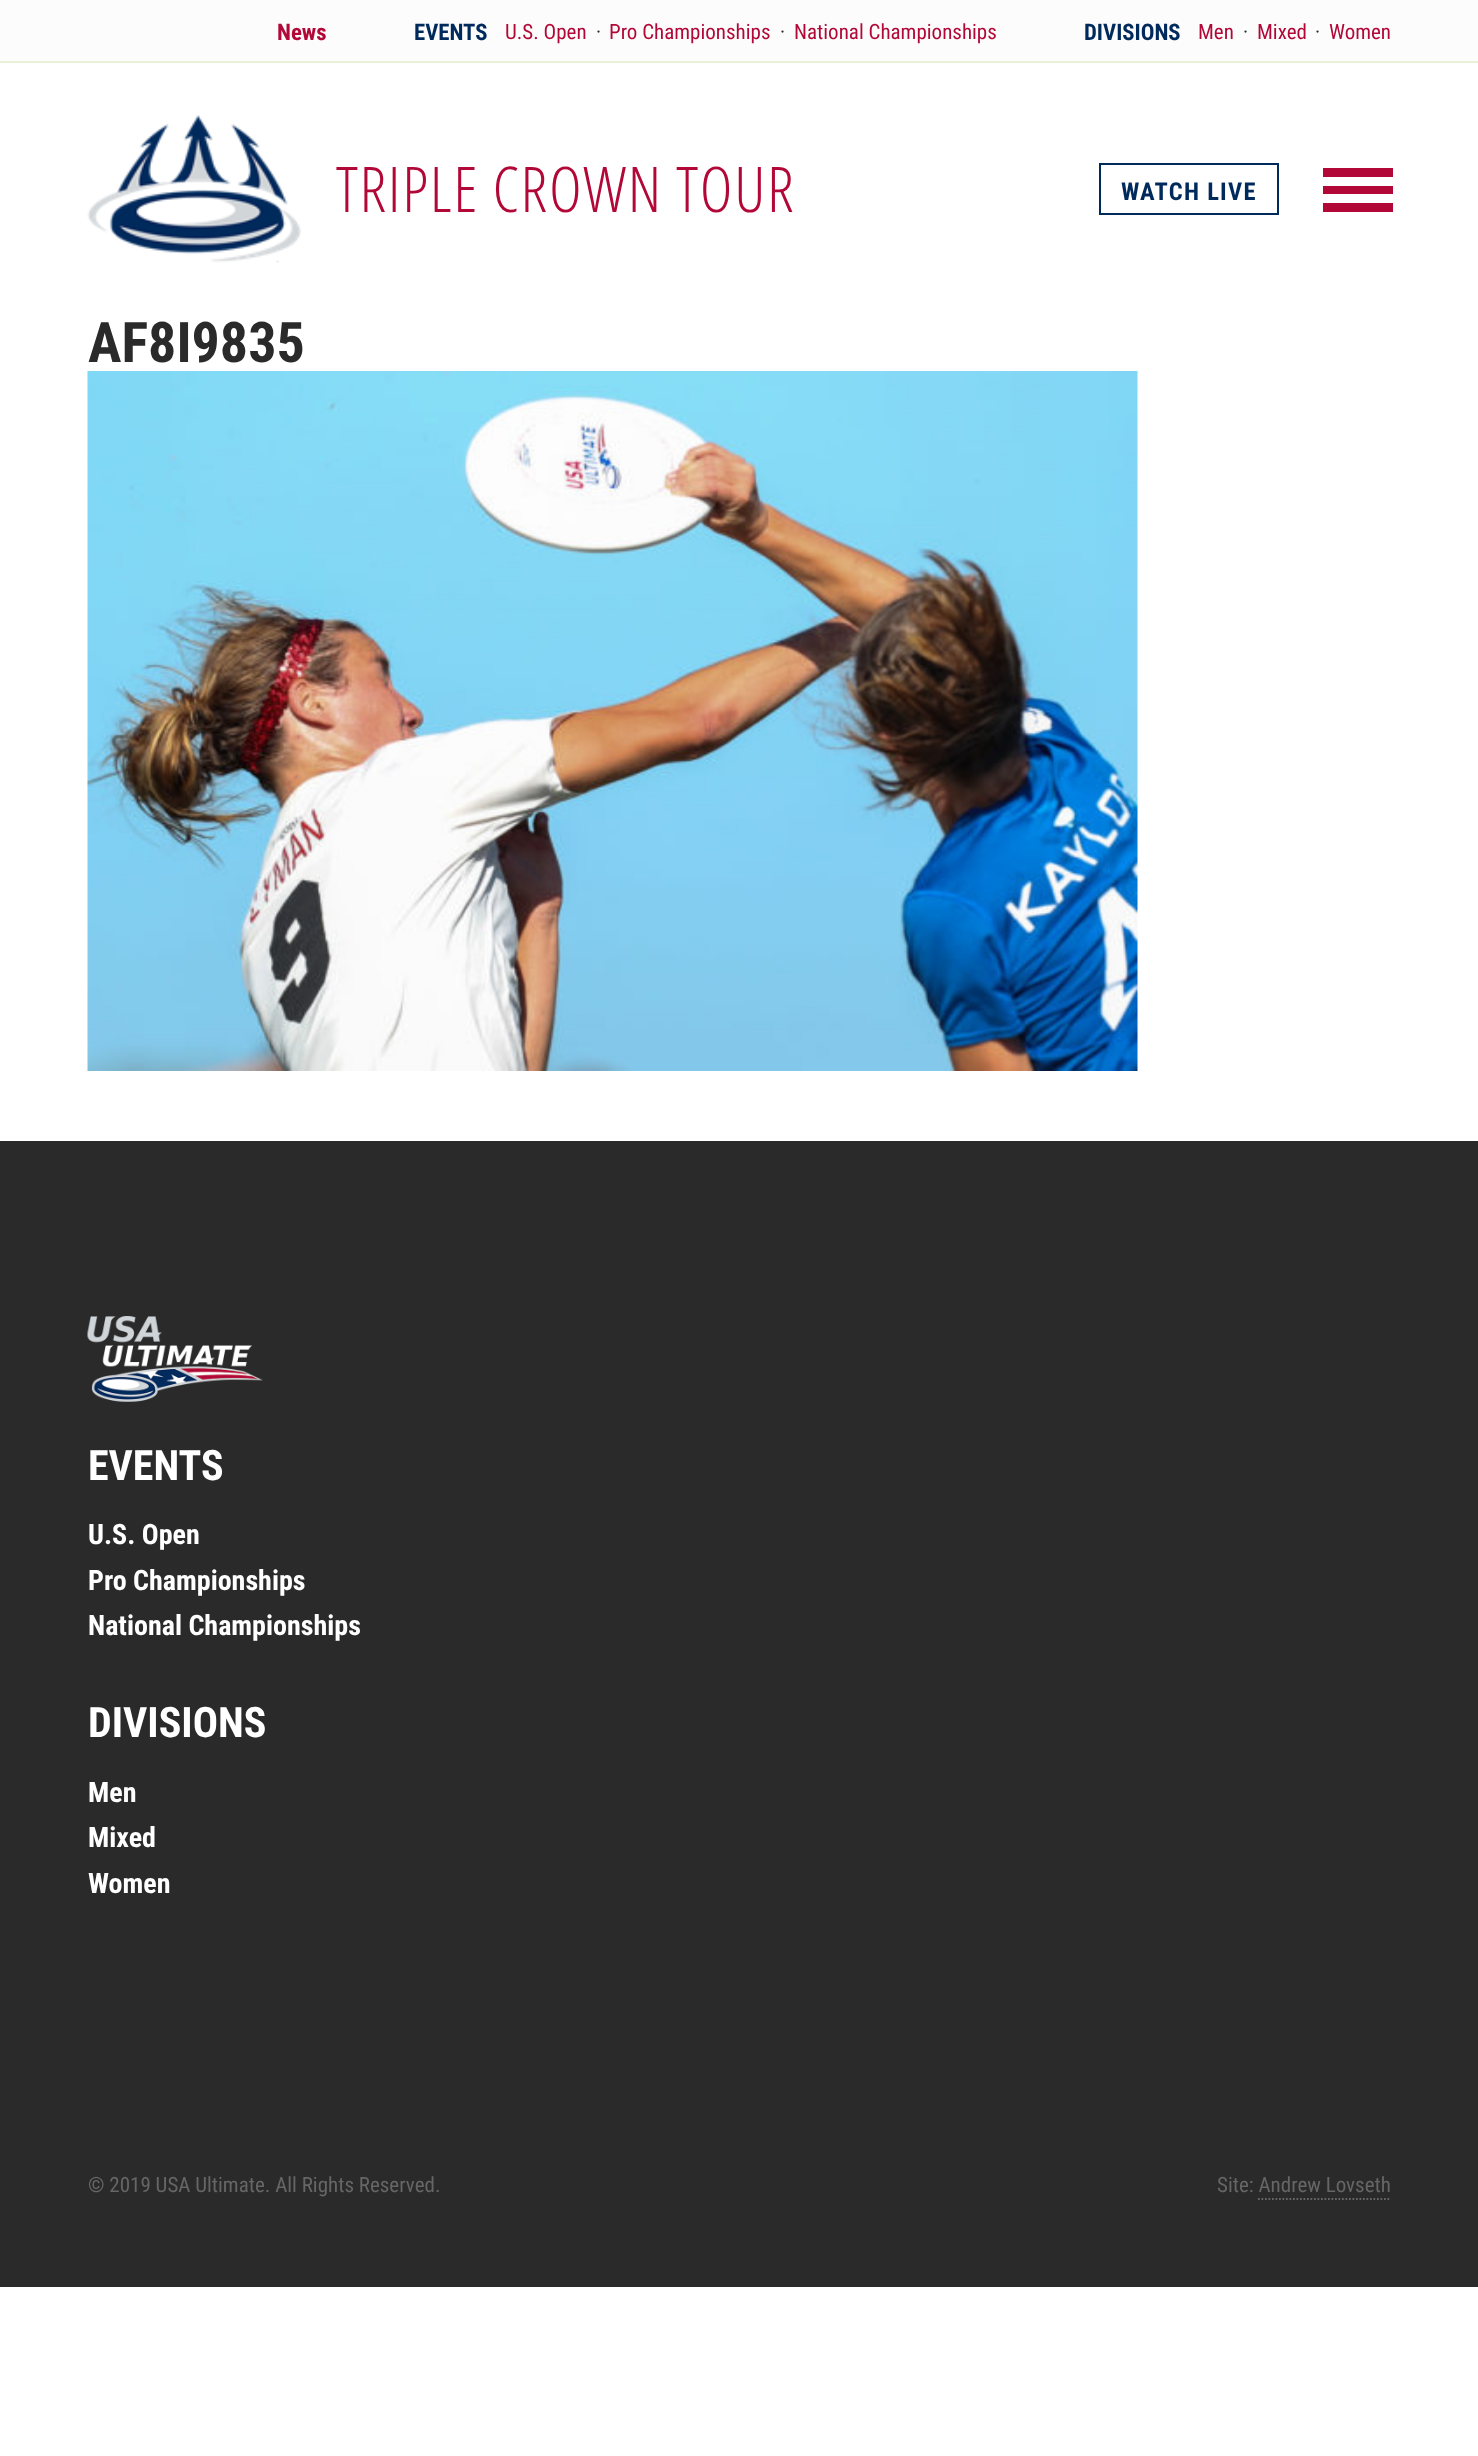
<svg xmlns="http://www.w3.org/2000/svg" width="1478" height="2456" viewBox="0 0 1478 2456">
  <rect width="100%" height="100%" fill="rgb(255,255,255)"/>
  <rect x="0" y="0" width="1478" height="61" fill="rgb(252,252,252)"/>
  <rect x="0" y="61" width="1478" height="2" fill="rgb(232,242,214)"/>
  <text x="277" y="40" font-family="Roboto Condensed" font-size="22.75" font-weight="bold" fill="rgb(178,8,56)">News</text>
  <text x="414" y="40" font-family="Roboto Condensed" font-size="22.75" font-weight="bold" fill="rgb(0,42,92)">EVENTS</text>
  <text x="505" y="39" font-family="Roboto Condensed" font-size="21" fill="rgb(178,8,56)">U.S. Open</text>
  <text x="596" y="39" font-family="Roboto Condensed" font-size="21" fill="rgb(42,42,42)">·</text>
  <text x="609" y="39" font-family="Roboto Condensed" font-size="21" fill="rgb(178,8,56)">Pro Championships</text>
  <text x="780" y="39" font-family="Roboto Condensed" font-size="21" fill="rgb(42,42,42)">·</text>
  <text x="794" y="39" font-family="Roboto Condensed" font-size="21" fill="rgb(178,8,56)">National Championships</text>
  <text x="1084" y="40" font-family="Roboto Condensed" font-size="22.75" font-weight="bold" fill="rgb(0,42,92)">DIVISIONS</text>
  <text x="1198" y="39" font-family="Roboto Condensed" font-size="21" fill="rgb(178,8,56)">Men</text>
  <text x="1243" y="39" font-family="Roboto Condensed" font-size="21" fill="rgb(42,42,42)">·</text>
  <text x="1257" y="39" font-family="Roboto Condensed" font-size="21" fill="rgb(178,8,56)">Mixed</text>
  <text x="1315" y="39" font-family="Roboto Condensed" font-size="21" fill="rgb(42,42,42)">·</text>
  <text x="1329" y="39" font-family="Roboto Condensed" font-size="21" fill="rgb(178,8,56)">Women</text>
  <image x="87" y="115" width="214" height="148" href="pic1.png"/>
  <text x="336" y="212" font-family="Open Sans Condensed" font-size="63" font-weight="300" letter-spacing="1.6" fill="rgb(178,8,56)">TRIPLE CROWN TOUR</text>
  <rect x="1100" y="164" width="178" height="50" fill="none" stroke="rgb(0,42,92)" stroke-width="2"/>
  <text x="1121" y="200" font-family="Roboto Condensed" font-size="24.5" font-weight="bold" letter-spacing="1.25" fill="rgb(0,42,92)">WATCH LIVE</text>
  <rect x="1323" y="186" width="70" height="8" fill="rgb(178,8,56)"/>
  <rect x="1323" y="168" width="70" height="9" fill="rgb(178,8,56)"/>
  <rect x="1323" y="203" width="70" height="9" fill="rgb(178,8,56)"/>
  <text x="88" y="362" font-family="Roboto Condensed" font-size="56" font-weight="bold" fill="rgb(42,42,42)">AF8I9835</text>
  <image x="87" y="371" width="1051" height="700" href="pic2.png"/>
  <rect x="0" y="1141" width="1478" height="1146" fill="rgb(42,42,42)"/>
  <image x="87" y="1316" width="176" height="86" href="pic3.png"/>
  <text x="88" y="1480" font-family="Roboto Condensed" font-size="42" font-weight="bold" fill="rgb(255,255,255)">EVENTS</text>
  <g font-family="Roboto Condensed" font-size="28" font-weight="bold" fill="rgb(255,255,255)">
    <text>
      <tspan x="88" y="1544">U.S. Open</tspan>
      <tspan x="88" y="1590">Pro Championships</tspan>
      <tspan x="88" y="1635">National Championships</tspan>
    </text>
  </g>
  <text x="88" y="1737" font-family="Roboto Condensed" font-size="42" font-weight="bold" fill="rgb(255,255,255)">DIVISIONS</text>
  <g font-family="Roboto Condensed" font-size="28" font-weight="bold" fill="rgb(255,255,255)">
    <text>
      <tspan x="88" y="1802">Men</tspan>
      <tspan x="88" y="1847">Mixed</tspan>
      <tspan x="88" y="1893">Women</tspan>
    </text>
  </g>
  <g font-family="Roboto Condensed" font-size="21" fill="rgb(102,102,102)">
    <text x="88" y="2192">© 2019 USA Ultimate. All Rights Reserved.</text>
    <text x="1217" y="2192">Site: Andrew Lovseth</text>
  </g>
  <path d="M1258 2199H1391" fill="none" stroke="rgb(102,102,102)" stroke-width="1.8" stroke-dasharray="1.75 1.75"/>
</svg>
